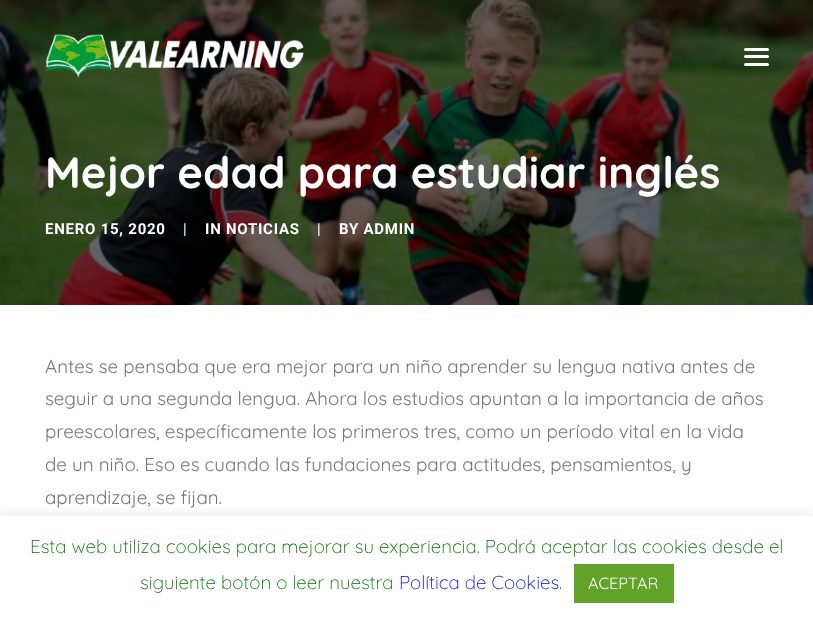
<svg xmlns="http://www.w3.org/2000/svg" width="813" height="617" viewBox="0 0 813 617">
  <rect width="100%" height="100%" fill="rgb(255,255,255)"/>
  <image x="0" y="0" width="813" height="305" href="pic2.png"/>
  <image x="45" y="34" width="259" height="44" href="pic1.png"/>
  <rect x="744" y="55" width="25" height="3" rx="1.5" fill="rgb(255,255,255)"/>
  <rect x="744" y="48" width="25" height="3" rx="1.5" fill="rgb(255,255,255)"/>
  <rect x="744" y="63" width="25" height="3" rx="1.5" fill="rgb(255,255,255)"/>
  <text x="45" y="188" font-family="Quicksand" font-size="43.75" font-weight="bold" fill="rgb(255,255,255)">Mejor edad para estudiar inglés</text>
  <text x="45" y="234" font-family="Roboto" font-size="15" font-weight="bold" letter-spacing="0.75" fill="rgb(255,255,255)">ENERO 15, 2020</text>
  <text x="183" y="234" font-family="Roboto" font-size="15" letter-spacing="0.75" fill="rgb(255,255,255)">|</text>
  <text x="205" y="234" font-family="Roboto" font-size="15" font-weight="bold" letter-spacing="0.75" fill="rgb(255,255,255)">IN NOTICIAS</text>
  <text x="317" y="234" font-family="Roboto" font-size="15" letter-spacing="0.75" fill="rgb(255,255,255)">|</text>
  <text x="339" y="234" font-family="Roboto" font-size="15" font-weight="bold" letter-spacing="0.75" fill="rgb(255,255,255)">BY ADMIN</text>
  <g font-family="Quicksand" font-size="18.75" fill="rgb(119,119,119)">
    <text>
      <tspan x="45" y="373">Antes se pensaba que era mejor para un niño aprender su lengua nativa antes de</tspan>
      <tspan x="45" y="405">seguir a una segunda lengua. Ahora los estudios apuntan a la importancia de años</tspan>
      <tspan x="45" y="438">preescolares, específicamente los primeros tres, como un período vital en la vida</tspan>
      <tspan x="45" y="471">de un niño. Eso es cuando las fundaciones para actitudes, pensamientos, y</tspan>
      <tspan x="45" y="504">aprendizaje, se fijan.</tspan>
    </text>
  </g>
  <rect x="0" y="515" width="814" height="101" fill="rgba(172,171,171,0.3)" filter="blur(6px)"/>
  <rect x="0" y="516" width="813" height="101" fill="rgb(255,255,255)"/>
  <g font-family="Quicksand" font-size="18.75" font-weight="300" fill="rgb(0,114,0)">
    <text x="30" y="553">Esta web utiliza cookies para mejorar su experiencia. Podrá aceptar las cookies desde el</text>
    <text x="140" y="589">siguiente botón o leer nuestra</text>
  </g>
  <text x="399" y="589" font-family="Quicksand" font-size="18.75" font-weight="300" fill="rgb(0,0,238)">Política de Cookies</text>
  <text x="559" y="589" font-family="Quicksand" font-size="18.75" font-weight="300" fill="rgb(0,114,0)">.</text>
  <rect x="574" y="564" width="100" height="39" fill="rgb(97,162,41)"/>
  <text x="588" y="589" font-family="Quicksand" font-size="16.25" fill="rgb(255,255,255)">ACEPTAR</text>
</svg>
